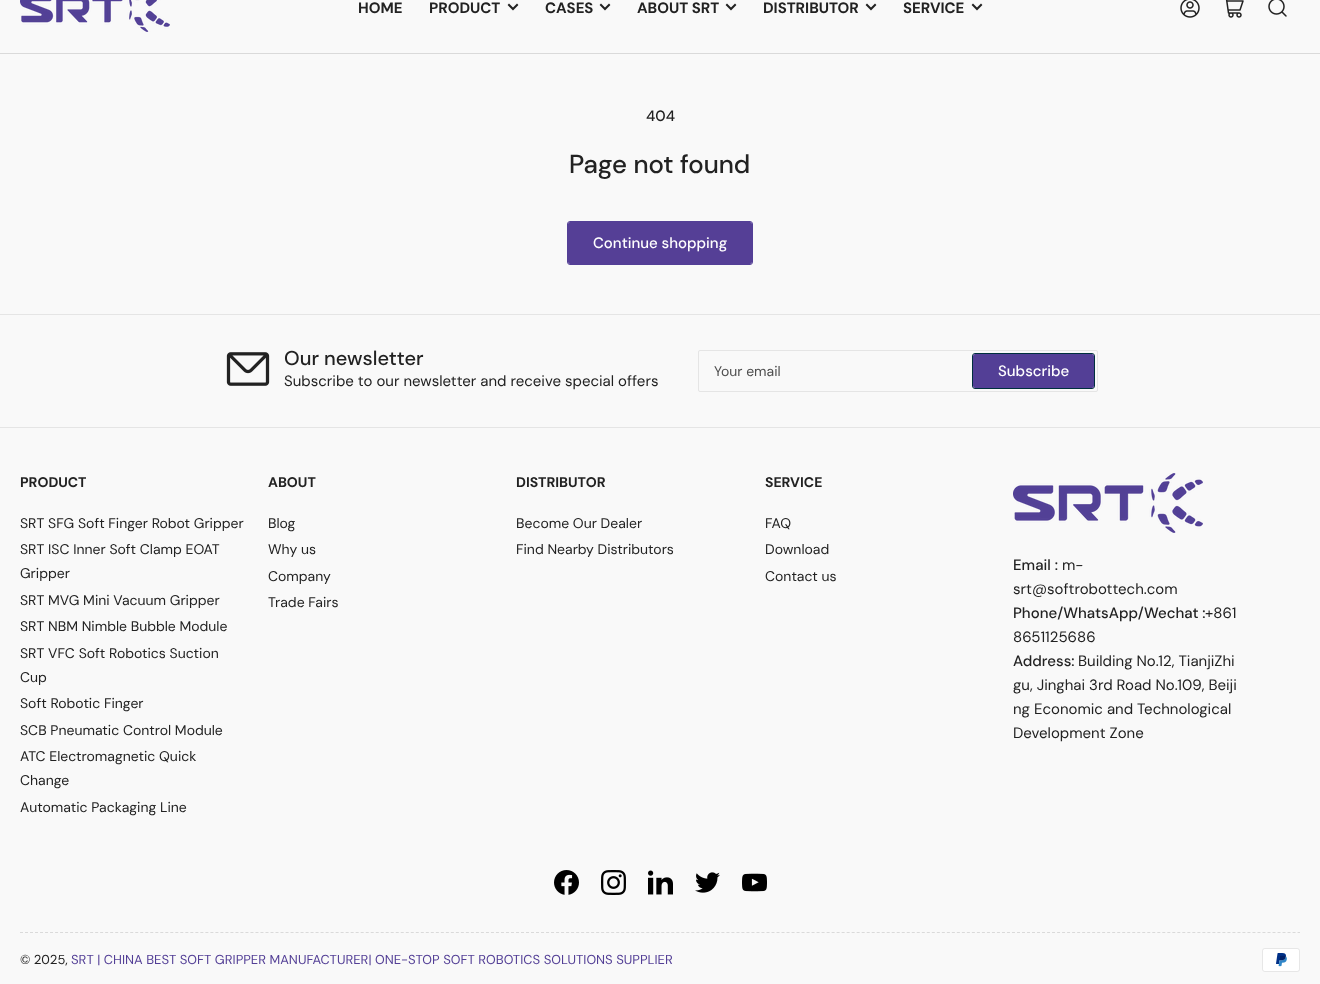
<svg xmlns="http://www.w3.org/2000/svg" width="1320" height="984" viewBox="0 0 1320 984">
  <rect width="100%" height="100%" fill="rgb(249,249,249)"/>
  <rect x="0" y="53" width="1320" height="1" fill="rgb(218,218,218)"/>
  <image x="20" y="0" width="150" height="32" href="pic1.png"/>
  <g font-family="'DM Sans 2'" font-size="15" font-weight="bold" fill="rgb(34,34,34)">
    <text x="358" y="13">HOME</text>
    <text x="429" y="13">PRODUCT</text>
  </g>
  <path d="M517 5L513 9L509 5" fill="none" stroke="rgb(35,35,35)" stroke-width="2" stroke-linecap="square"/>
  <text x="545" y="13" font-family="'DM Sans 2'" font-size="15" font-weight="bold" fill="rgb(34,34,34)">CASES</text>
  <path d="M609 5L605 9L601 5" fill="none" stroke="rgb(35,35,35)" stroke-width="2" stroke-linecap="square"/>
  <text x="637" y="13" font-family="'DM Sans 2'" font-size="15" font-weight="bold" fill="rgb(34,34,34)">ABOUT SRT</text>
  <path d="M735 5L731 9L727 5" fill="none" stroke="rgb(35,35,35)" stroke-width="2" stroke-linecap="square"/>
  <text x="763" y="13" font-family="'DM Sans 2'" font-size="15" font-weight="bold" fill="rgb(34,34,34)">DISTRIBUTOR</text>
  <path d="M875 5L871 9L867 5" fill="none" stroke="rgb(35,35,35)" stroke-width="2" stroke-linecap="square"/>
  <text x="903" y="13" font-family="'DM Sans 2'" font-size="15" font-weight="bold" fill="rgb(34,34,34)">SERVICE</text>
  <path d="M981 5L977 9L973 5" fill="none" stroke="rgb(35,35,35)" stroke-width="2" stroke-linecap="square"/>
  <image x="1180" y="0" width="20" height="18" href="pic2.png"/>
  <image x="1225" y="0" width="19" height="18" href="pic3.png"/>
  <image x="1268" y="0" width="19" height="17" href="pic4.png"/>
  <text x="646" y="121" font-family="DM Sans" font-size="15" font-weight="500" fill="rgb(34,34,34)">404</text>
  <text x="569" y="173" font-family="'DM Sans 2'" font-size="26" font-weight="500" fill="rgb(34,34,34)">Page not found</text>
  <rect x="567.5" y="221.5" width="185" height="43" rx="2.5" fill="none" stroke="rgb(83,63,150)"/>
  <rect x="568" y="222" width="184" height="42" rx="2" fill="rgb(85,63,150)"/>
  <text x="593" y="248" font-family="DM Sans" font-size="15" font-weight="500" fill="rgb(255,255,255)">Continue shopping</text>
  <rect x="0" y="314" width="1320" height="1" fill="rgb(229,229,229)"/>
  <rect x="0" y="427" width="1320" height="1" fill="rgb(229,229,229)"/>
  <image x="226" y="352" width="44" height="34" href="pic5.png"/>
  <text x="284" y="365" font-family="'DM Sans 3'" font-size="20" font-weight="500" fill="rgb(34,34,34)">Our newsletter</text>
  <text x="284" y="386" font-family="DM Sans" font-size="15" fill="rgb(34,34,34)">Subscribe to our newsletter and receive special offers</text>
  <rect x="698.5" y="350.5" width="399" height="41" rx="1.5" fill="none" stroke="rgb(229,229,229)"/>
  <text x="714" y="376" font-family="'DM Sans 2'" font-size="14" fill="rgb(77,77,77)">Your email</text>
  <rect x="972.5" y="353.5" width="122" height="35" rx="2.5" fill="none" stroke="rgb(0,48,62)"/>
  <rect x="973" y="354" width="121" height="34" rx="2" fill="rgb(83,63,150)"/>
  <text x="998" y="376" font-family="DM Sans" font-size="15" font-weight="500" fill="rgb(255,255,255)">Subscribe</text>
  <text x="20" y="487" font-family="DM Sans" font-size="14" font-weight="bold" fill="rgb(34,34,34)">PRODUCT</text>
  <g font-family="'DM Sans 2'" font-size="14" fill="rgb(34,34,34)">
    <text>
      <tspan x="20" y="528">SRT SFG Soft Finger Robot Gripper</tspan>
      <tspan x="20" y="554">SRT ISC Inner Soft Clamp EOAT</tspan>
      <tspan x="20" y="578">Gripper</tspan>
      <tspan x="20" y="605">SRT MVG Mini Vacuum Gripper</tspan>
      <tspan x="20" y="631">SRT NBM Nimble Bubble Module</tspan>
      <tspan x="20" y="658">SRT VFC Soft Robotics Suction</tspan>
      <tspan x="20" y="682">Cup</tspan>
      <tspan x="20" y="708">Soft Robotic Finger</tspan>
      <tspan x="20" y="735">SCB Pneumatic Control Module</tspan>
      <tspan x="20" y="761">ATC Electromagnetic Quick</tspan>
      <tspan x="20" y="785">Change</tspan>
      <tspan x="20" y="812">Automatic Packaging Line</tspan>
    </text>
  </g>
  <text x="268" y="487" font-family="DM Sans" font-size="14" font-weight="bold" fill="rgb(34,34,34)">ABOUT</text>
  <g font-family="'DM Sans 2'" font-size="14" fill="rgb(34,34,34)">
    <text>
      <tspan x="268" y="528">Blog</tspan>
      <tspan x="268" y="554">Why us</tspan>
      <tspan x="268" y="581">Company</tspan>
      <tspan x="268" y="607">Trade Fairs</tspan>
    </text>
  </g>
  <text x="516" y="487" font-family="DM Sans" font-size="14" font-weight="bold" fill="rgb(34,34,34)">DISTRIBUTOR</text>
  <g font-family="'DM Sans 2'" font-size="14" fill="rgb(34,34,34)">
    <text>
      <tspan x="516" y="528">Become Our Dealer</tspan>
      <tspan x="516" y="554">Find Nearby Distributors</tspan>
    </text>
  </g>
  <text x="765" y="487" font-family="DM Sans" font-size="14" font-weight="bold" fill="rgb(34,34,34)">SERVICE</text>
  <g font-family="'DM Sans 2'" font-size="14" fill="rgb(34,34,34)">
    <text>
      <tspan x="765" y="528">FAQ</tspan>
      <tspan x="765" y="554">Download</tspan>
      <tspan x="765" y="581">Contact us</tspan>
    </text>
  </g>
  <image x="1013" y="473" width="190" height="60" href="pic6.png"/>
  <text x="1013" y="570" font-family="DM Sans" font-size="15" font-weight="500" fill="rgb(34,34,34)">Email :</text>
  <g font-family="DM Sans" font-size="15" fill="rgb(34,34,34)">
    <text x="1062" y="570">m-</text>
    <text x="1013" y="594">srt@softrobottech.com</text>
  </g>
  <text x="1013" y="618" font-family="DM Sans" font-size="15" font-weight="500" fill="rgb(34,34,34)">Phone/WhatsApp/Wechat :</text>
  <g font-family="DM Sans" font-size="15" fill="rgb(34,34,34)">
    <text x="1205" y="618">+861</text>
    <text x="1013" y="642">8651125686</text>
  </g>
  <text x="1013" y="666" font-family="DM Sans" font-size="15" font-weight="500" fill="rgb(34,34,34)">Address:</text>
  <g font-family="DM Sans" font-size="15" fill="rgb(34,34,34)">
    <text x="1078" y="666">Building No.12, TianjiZhi</text>
    <text>
      <tspan x="1013" y="690">gu, Jinghai 3rd Road No.109, Beiji</tspan>
      <tspan x="1013" y="714">ng Economic and Technological</tspan>
      <tspan x="1013" y="738">Development Zone</tspan>
    </text>
  </g>
  <image x="554" y="870" width="25" height="25" href="pic7.png"/>
  <image x="601" y="870" width="25" height="25" href="pic8.png"/>
  <image x="648" y="870" width="25" height="25" href="pic9.png"/>
  <image x="695" y="872" width="25" height="21" href="pic10.png"/>
  <image x="742" y="873" width="25" height="19" href="pic11.png"/>
  <path d="M20 932.5H1300" fill="none" stroke="rgb(218,218,218)" stroke-dasharray="3 2.01"/>
  <text x="20" y="964" font-family="'DM Sans 3'" font-size="13" fill="rgb(34,34,34)">© 2025,</text>
  <text x="71" y="964" font-family="'DM Sans 3'" font-size="13" fill="rgb(83,63,150)">SRT | CHINA BEST SOFT GRIPPER MANUFACTURER| ONE-STOP SOFT ROBOTICS SOLUTIONS SUPPLIER</text>
  <image x="1262" y="948" width="38" height="24" href="pic12.png"/>
</svg>
